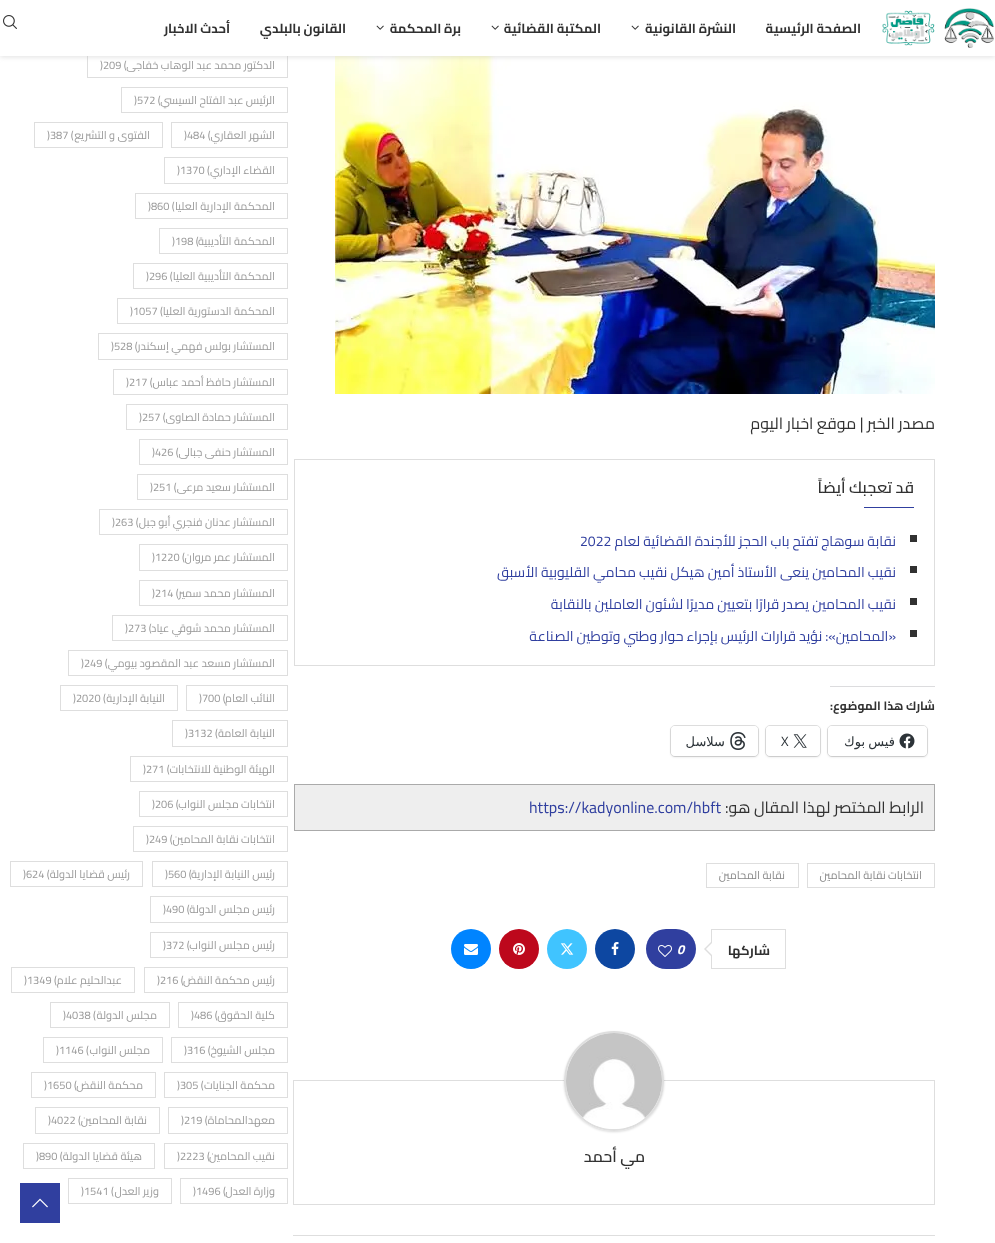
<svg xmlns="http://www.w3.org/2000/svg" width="995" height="1243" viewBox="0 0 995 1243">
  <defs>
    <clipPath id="clip1"><path d="M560 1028H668V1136H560ZM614 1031C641.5 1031 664 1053.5 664 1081C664 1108.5 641.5 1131 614 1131C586.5 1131 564 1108.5 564 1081C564 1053.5 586.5 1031 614 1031Z" clip-rule="evenodd"/></clipPath>
  </defs>
  <rect width="100%" height="100%" fill="rgb(255,255,255)"/>
  <image x="335" y="56" width="600" height="338" href="pic4.png"/>
  <rect x="87.5" y="52.5" width="200" height="25" fill="none" stroke="rgb(222,222,222)"/>
  <rect x="0" y="1" width="995" height="56" fill="rgba(190,190,190,0.46)" filter="blur(2.5px)"/>
  <rect x="0" y="0" width="995" height="56" fill="rgb(255,255,255)"/>
  <image x="882" y="8" width="112" height="40" href="pic1.png"/>
  <g font-family="Cairo" font-size="13" font-weight="bold" direction="rtl" fill="rgb(49,49,49)">
    <text x="861" y="33">الصفحة الرئيسية</text>
    <text x="736" y="33">النشرة القانونية</text>
  </g>
  <image x="631" y="25" width="8" height="5" href="pic2.png"/>
  <text x="601" y="33" font-family="Cairo" font-size="13" font-weight="bold" direction="rtl" fill="rgb(49,49,49)">المكتبة القضائية</text>
  <image x="491" y="25" width="8" height="5" href="pic2.png"/>
  <text x="461" y="33" font-family="Cairo" font-size="13" font-weight="bold" direction="rtl" fill="rgb(49,49,49)">برة المحكمة</text>
  <image x="376" y="25" width="8" height="5" href="pic2.png"/>
  <g font-family="Cairo" font-size="13" font-weight="bold" direction="rtl" fill="rgb(49,49,49)">
    <text x="346" y="33">القانون بالبلدي</text>
    <text x="230" y="33">أحدث الاخبار</text>
  </g>
  <image x="3" y="15" width="14" height="14" href="pic3.png"/>
  <text x="935" y="429" font-family="Cairo" font-size="16" direction="rtl" fill="rgb(49,49,49)">مصدر الخبر | موقع اخبار اليوم</text>
  <rect x="294.5" y="459.5" width="640" height="206" fill="none" stroke="rgb(222,222,222)"/>
  <text x="914" y="493" font-family="Cairo" font-size="16" font-weight="600" direction="rtl" fill="rgb(49,49,49)">قد تعجبك أيضاً</text>
  <rect x="864" y="507" width="50" height="1" fill="rgb(48,63,159)"/>
  <rect x="910" y="535" width="7" height="7" fill="rgb(49,49,49)"/>
  <text x="896" y="546" font-family="Cairo" font-size="14" direction="rtl" fill="rgb(48,63,159)">نقابة سوهاج تفتح باب الحجز للأجندة القضائية لعام</text>
  <text x="580" y="546" font-family="Cairo" font-size="14" fill="rgb(48,63,159)">2022</text>
  <rect x="910" y="566" width="7" height="7" fill="rgb(49,49,49)"/>
  <text x="896" y="577" font-family="Cairo" font-size="14" direction="rtl" fill="rgb(48,63,159)">نقيب المحامين ينعى الأستاذ أمين هيكل نقيب محامي القليوبية الأسبق</text>
  <rect x="910" y="598" width="7" height="7" fill="rgb(49,49,49)"/>
  <text x="896" y="609" font-family="Cairo" font-size="14" direction="rtl" fill="rgb(48,63,159)">نقيب المحامين يصدر قرارًا بتعيين مديرًا لشئون العاملين بالنقابة</text>
  <rect x="910" y="630" width="7" height="7" fill="rgb(49,49,49)"/>
  <text x="896" y="641" font-family="Cairo" font-size="14" direction="rtl" fill="rgb(48,63,159)">«المحامين»: نؤيد قرارات الرئيس بإجراء حوار وطني وتوطين الصناعة</text>
  <rect x="830" y="686" width="105" height="1" fill="rgb(220,220,222)"/>
  <text x="935" y="710" font-family="Cairo" font-size="12" font-weight="bold" direction="rtl" fill="rgb(49,49,49)">شارك هذا الموضوع:</text>
  <rect x="827.5" y="725.5" width="100" height="31" rx="4.5" fill="none" stroke="rgb(224,224,224)"/>
  <rect x="828" y="727" width="99" height="30" rx="4" fill="rgba(0,0,0,0.12)" filter="blur(1px)"/>
  <rect x="828" y="726" width="99" height="30" rx="4" fill="rgb(255,255,255)"/>
  <image x="899" y="733" width="16" height="16" href="pic5.png"/>
  <text x="895" y="746" word-spacing="-1" font-family="DejaVu Sans" font-size="13" direction="rtl" fill="rgb(44,51,56)">فيس بوك</text>
  <rect x="765.5" y="725.5" width="55" height="31" rx="4.5" fill="none" stroke="rgb(224,224,224)"/>
  <rect x="766" y="727" width="54" height="30" rx="4" fill="rgba(0,0,0,0.12)" filter="blur(1px)"/>
  <rect x="766" y="726" width="54" height="30" rx="4" fill="rgb(255,255,255)"/>
  <image x="793" y="734" width="14" height="14" href="pic6.png"/>
  <text x="781" y="746" font-family="Open Sans" font-size="13" fill="rgb(44,51,56)">X</text>
  <rect x="670.5" y="725.5" width="88" height="31" rx="4.5" fill="none" stroke="rgb(224,224,224)"/>
  <rect x="671" y="727" width="87" height="30" rx="4" fill="rgba(0,0,0,0.12)" filter="blur(1px)"/>
  <rect x="671" y="726" width="87" height="30" rx="4" fill="rgb(255,255,255)"/>
  <image x="730" y="732" width="16" height="18" href="pic7.png"/>
  <text x="725" y="746" font-family="DejaVu Sans" font-size="13" direction="rtl" fill="rgb(44,51,56)">سلاسل</text>
  <rect x="294.5" y="784.5" width="640" height="46" fill="rgb(238,238,238)" stroke="rgb(170,170,170)"/>
  <text x="924" y="813" font-family="Cairo" font-size="16" direction="rtl" fill="rgb(49,49,49)">الرابط المختصر لهذا المقال هو:</text>
  <text x="529" y="813" font-family="Cairo" font-size="16" fill="rgb(48,63,159)">https://kadyonline.com/hbft</text>
  <rect x="807.5" y="863.5" width="127" height="24" fill="none" stroke="rgb(222,222,222)"/>
  <text x="922" y="879" font-family="Cairo" font-size="11" direction="rtl" fill="rgb(136,136,136)">انتخابات نقابة المحامين</text>
  <rect x="706.5" y="863.5" width="92" height="24" fill="none" stroke="rgb(222,222,222)"/>
  <text x="785" y="879" font-family="Cairo" font-size="11" direction="rtl" fill="rgb(136,136,136)">نقابة المحامين</text>
  <rect x="711.5" y="929.5" width="74" height="39" fill="none" stroke="rgb(222,222,222)"/>
  <path d="M712 941V957L704 949Z" fill="rgb(222,222,222)"/>
  <text x="770" y="955" font-family="Cairo" font-size="13" font-weight="bold" direction="rtl" fill="rgb(49,49,49)">شاركها</text>
  <path d="M712 943V955L706 949Z" fill="rgb(255,255,255)"/>
  <rect x="646" y="929" width="50" height="40" rx="20" fill="rgb(48,63,159)"/>
  <text x="677" y="954" font-family="Cairo" font-size="13" font-weight="bold" font-style="italic" fill="rgb(255,255,255)">0</text>
  <image x="658" y="945" width="14" height="12" href="pic8.png"/>
  <circle cx="615" cy="949" r="20" fill="rgb(13,71,161)"/>
  <image x="611" y="942" width="8" height="13" href="pic9.png"/>
  <circle cx="567" cy="949" r="20" fill="rgb(64,196,255)"/>
  <image x="560" y="943" width="14" height="12" href="pic10.png"/>
  <circle cx="519" cy="949" r="20" fill="rgb(189,8,28)"/>
  <image x="513" y="943" width="12" height="12" href="pic11.png"/>
  <circle cx="471" cy="949" r="20" fill="rgb(0,132,255)"/>
  <image x="464" y="944" width="14" height="11" href="pic12.png"/>
  <rect x="293.5" y="1080.5" width="641" height="124" fill="none" stroke="rgb(222,222,222)"/>
  <g clip-path="url(#clip1)">
    <rect x="564" y="1032" width="100" height="100" rx="50" fill="rgba(0,0,0,0.15)" filter="blur(1px)"/>
  </g>
  <circle cx="614" cy="1081" r="49" fill="rgb(255,255,255)" stroke="rgb(222,222,222)" stroke-width="2"/>
  <image x="566" y="1033" width="96" height="96" href="pic13.png"/>
  <text x="645" y="1162" font-family="Cairo" font-size="16" font-weight="600" direction="rtl" fill="rgb(49,49,49)">مي أحمد</text>
  <rect x="293" y="1235" width="642" height="1" fill="rgb(222,222,222)"/>
  <text x="275" y="69" font-family="Cairo" font-size="11" direction="rtl" fill="rgb(153,153,153)">الدكتور محمد عبد الوهاب خفاجى</text>
  <text x="100" y="69" font-family="Cairo" font-size="11" fill="rgb(153,153,153)">)209 (</text>
  <rect x="121.5" y="87.5" width="166" height="25" fill="none" stroke="rgb(222,222,222)"/>
  <text x="275" y="104" font-family="Cairo" font-size="11" direction="rtl" fill="rgb(153,153,153)">الرئيس عبد الفتاح السيسي</text>
  <text x="134" y="104" font-family="Cairo" font-size="11" fill="rgb(153,153,153)">)572 (</text>
  <rect x="171.5" y="122.5" width="116" height="25" fill="none" stroke="rgb(222,222,222)"/>
  <text x="275" y="139" font-family="Cairo" font-size="11" direction="rtl" fill="rgb(153,153,153)">الشهر العقاري</text>
  <text x="184" y="139" font-family="Cairo" font-size="11" fill="rgb(153,153,153)">)484 (</text>
  <rect x="34.5" y="122.5" width="128" height="25" fill="none" stroke="rgb(222,222,222)"/>
  <text x="150" y="139" font-family="Cairo" font-size="11" direction="rtl" fill="rgb(153,153,153)">الفتوى و التشريع</text>
  <text x="47" y="139" font-family="Cairo" font-size="11" fill="rgb(153,153,153)">)387 (</text>
  <rect x="164.5" y="157.5" width="123" height="26" fill="none" stroke="rgb(222,222,222)"/>
  <text x="275" y="174" font-family="Cairo" font-size="11" direction="rtl" fill="rgb(153,153,153)">القضاء الإداري</text>
  <text x="177" y="174" font-family="Cairo" font-size="11" fill="rgb(153,153,153)">)1370 (</text>
  <rect x="135.5" y="193.5" width="152" height="25" fill="none" stroke="rgb(222,222,222)"/>
  <text x="275" y="210" font-family="Cairo" font-size="11" direction="rtl" fill="rgb(153,153,153)">المحكمة الإدارية العليا</text>
  <text x="148" y="210" font-family="Cairo" font-size="11" fill="rgb(153,153,153)">)860 (</text>
  <rect x="159.5" y="228.5" width="128" height="25" fill="none" stroke="rgb(222,222,222)"/>
  <text x="275" y="245" font-family="Cairo" font-size="11" direction="rtl" fill="rgb(153,153,153)">المحكمة التأديبية</text>
  <text x="172" y="245" font-family="Cairo" font-size="11" fill="rgb(153,153,153)">)198 (</text>
  <rect x="133.5" y="263.5" width="154" height="25" fill="none" stroke="rgb(222,222,222)"/>
  <text x="275" y="280" font-family="Cairo" font-size="11" direction="rtl" fill="rgb(153,153,153)">المحكمة التأديبية العليا</text>
  <text x="146" y="280" font-family="Cairo" font-size="11" fill="rgb(153,153,153)">)296 (</text>
  <rect x="117.5" y="298.5" width="170" height="25" fill="none" stroke="rgb(222,222,222)"/>
  <text x="275" y="315" font-family="Cairo" font-size="11" direction="rtl" fill="rgb(153,153,153)">المحكمة الدستورية العليا</text>
  <text x="130" y="315" font-family="Cairo" font-size="11" fill="rgb(153,153,153)">)1057 (</text>
  <rect x="98.5" y="333.5" width="189" height="26" fill="none" stroke="rgb(222,222,222)"/>
  <text x="275" y="350" font-family="Cairo" font-size="11" direction="rtl" fill="rgb(153,153,153)">المستشار بولس فهمي إسكندر</text>
  <text x="111" y="350" font-family="Cairo" font-size="11" fill="rgb(153,153,153)">)528 (</text>
  <rect x="113.5" y="369.5" width="174" height="25" fill="none" stroke="rgb(222,222,222)"/>
  <text x="275" y="386" font-family="Cairo" font-size="11" direction="rtl" fill="rgb(153,153,153)">المستشار حافظ أحمد عباس</text>
  <text x="126" y="386" font-family="Cairo" font-size="11" fill="rgb(153,153,153)">)217 (</text>
  <rect x="126.5" y="404.5" width="161" height="25" fill="none" stroke="rgb(222,222,222)"/>
  <text x="275" y="421" font-family="Cairo" font-size="11" direction="rtl" fill="rgb(153,153,153)">المستشار حمادة الصاوى</text>
  <text x="139" y="421" font-family="Cairo" font-size="11" fill="rgb(153,153,153)">)257 (</text>
  <rect x="139.5" y="439.5" width="148" height="25" fill="none" stroke="rgb(222,222,222)"/>
  <text x="275" y="456" font-family="Cairo" font-size="11" direction="rtl" fill="rgb(153,153,153)">المستشار حنفى جبالى</text>
  <text x="152" y="456" font-family="Cairo" font-size="11" fill="rgb(153,153,153)">)426 (</text>
  <rect x="137.5" y="474.5" width="150" height="25" fill="none" stroke="rgb(222,222,222)"/>
  <text x="275" y="491" font-family="Cairo" font-size="11" direction="rtl" fill="rgb(153,153,153)">المستشار سعيد مرعى</text>
  <text x="150" y="491" font-family="Cairo" font-size="11" fill="rgb(153,153,153)">)251 (</text>
  <rect x="99.5" y="509.5" width="188" height="25" fill="none" stroke="rgb(222,222,222)"/>
  <text x="275" y="526" font-family="Cairo" font-size="11" direction="rtl" fill="rgb(153,153,153)">المستشار عدنان فنجري أبو جبل</text>
  <text x="112" y="526" font-family="Cairo" font-size="11" fill="rgb(153,153,153)">)263 (</text>
  <rect x="139.5" y="544.5" width="148" height="26" fill="none" stroke="rgb(222,222,222)"/>
  <text x="275" y="561" font-family="Cairo" font-size="11" direction="rtl" fill="rgb(153,153,153)">المستشار عمر مروان</text>
  <text x="152" y="561" font-family="Cairo" font-size="11" fill="rgb(153,153,153)">)1220 (</text>
  <rect x="139.5" y="580.5" width="148" height="25" fill="none" stroke="rgb(222,222,222)"/>
  <text x="275" y="597" font-family="Cairo" font-size="11" direction="rtl" fill="rgb(153,153,153)">المستشار محمد سمير</text>
  <text x="152" y="597" font-family="Cairo" font-size="11" fill="rgb(153,153,153)">)214 (</text>
  <rect x="112.5" y="615.5" width="175" height="25" fill="none" stroke="rgb(222,222,222)"/>
  <text x="275" y="632" font-family="Cairo" font-size="11" direction="rtl" fill="rgb(153,153,153)">المستشار محمد شوقي عياد</text>
  <text x="125" y="632" font-family="Cairo" font-size="11" fill="rgb(153,153,153)">)273 (</text>
  <rect x="68.5" y="650.5" width="219" height="25" fill="none" stroke="rgb(222,222,222)"/>
  <text x="275" y="667" font-family="Cairo" font-size="11" direction="rtl" fill="rgb(153,153,153)">المستشار مسعد عبد المقصود بيومي</text>
  <text x="81" y="667" font-family="Cairo" font-size="11" fill="rgb(153,153,153)">)249 (</text>
  <rect x="186.5" y="685.5" width="101" height="25" fill="none" stroke="rgb(222,222,222)"/>
  <text x="275" y="702" font-family="Cairo" font-size="11" direction="rtl" fill="rgb(153,153,153)">النائب العام</text>
  <text x="199" y="702" font-family="Cairo" font-size="11" fill="rgb(153,153,153)">)700 (</text>
  <rect x="60.5" y="685.5" width="117" height="25" fill="none" stroke="rgb(222,222,222)"/>
  <text x="165" y="702" font-family="Cairo" font-size="11" direction="rtl" fill="rgb(153,153,153)">النيابة الإدارية</text>
  <text x="73" y="702" font-family="Cairo" font-size="11" fill="rgb(153,153,153)">)2020 (</text>
  <rect x="172.5" y="720.5" width="115" height="26" fill="none" stroke="rgb(222,222,222)"/>
  <text x="275" y="737" font-family="Cairo" font-size="11" direction="rtl" fill="rgb(153,153,153)">النيابة العامة</text>
  <text x="185" y="737" font-family="Cairo" font-size="11" fill="rgb(153,153,153)">)3132 (</text>
  <rect x="130.5" y="756.5" width="157" height="25" fill="none" stroke="rgb(222,222,222)"/>
  <text x="275" y="773" font-family="Cairo" font-size="11" direction="rtl" fill="rgb(153,153,153)">الهيئة الوطنية للانتخابات</text>
  <text x="143" y="773" font-family="Cairo" font-size="11" fill="rgb(153,153,153)">)271 (</text>
  <rect x="139.5" y="791.5" width="148" height="25" fill="none" stroke="rgb(222,222,222)"/>
  <text x="275" y="808" font-family="Cairo" font-size="11" direction="rtl" fill="rgb(153,153,153)">انتخابات مجلس النواب</text>
  <text x="152" y="808" font-family="Cairo" font-size="11" fill="rgb(153,153,153)">)206 (</text>
  <rect x="133.5" y="826.5" width="154" height="25" fill="none" stroke="rgb(222,222,222)"/>
  <text x="275" y="843" font-family="Cairo" font-size="11" direction="rtl" fill="rgb(153,153,153)">انتخابات نقابة المحامين</text>
  <text x="146" y="843" font-family="Cairo" font-size="11" fill="rgb(153,153,153)">)249 (</text>
  <rect x="152.5" y="861.5" width="135" height="25" fill="none" stroke="rgb(222,222,222)"/>
  <text x="275" y="878" font-family="Cairo" font-size="11" direction="rtl" fill="rgb(153,153,153)">رئيس النيابة الإدارية</text>
  <text x="165" y="878" font-family="Cairo" font-size="11" fill="rgb(153,153,153)">)560 (</text>
  <rect x="10.5" y="861.5" width="132" height="25" fill="none" stroke="rgb(222,222,222)"/>
  <text x="130" y="878" font-family="Cairo" font-size="11" direction="rtl" fill="rgb(153,153,153)">رئيس قضايا الدولة</text>
  <text x="23" y="878" font-family="Cairo" font-size="11" fill="rgb(153,153,153)">)624 (</text>
  <rect x="150.5" y="896.5" width="137" height="26" fill="none" stroke="rgb(222,222,222)"/>
  <text x="275" y="913" font-family="Cairo" font-size="11" direction="rtl" fill="rgb(153,153,153)">رئيس مجلس الدولة</text>
  <text x="163" y="913" font-family="Cairo" font-size="11" fill="rgb(153,153,153)">)490 (</text>
  <rect x="150.5" y="932.5" width="137" height="25" fill="none" stroke="rgb(222,222,222)"/>
  <text x="275" y="949" font-family="Cairo" font-size="11" direction="rtl" fill="rgb(153,153,153)">رئيس مجلس النواب</text>
  <text x="163" y="949" font-family="Cairo" font-size="11" fill="rgb(153,153,153)">)372 (</text>
  <rect x="144.5" y="967.5" width="143" height="25" fill="none" stroke="rgb(222,222,222)"/>
  <text x="275" y="984" font-family="Cairo" font-size="11" direction="rtl" fill="rgb(153,153,153)">رئيس محكمة النقض</text>
  <text x="157" y="984" font-family="Cairo" font-size="11" fill="rgb(153,153,153)">)216 (</text>
  <rect x="11.5" y="967.5" width="123" height="25" fill="none" stroke="rgb(222,222,222)"/>
  <text x="122" y="984" font-family="Cairo" font-size="11" direction="rtl" fill="rgb(153,153,153)">عبدالحليم علام</text>
  <text x="24" y="984" font-family="Cairo" font-size="11" fill="rgb(153,153,153)">)1349 (</text>
  <rect x="178.5" y="1002.5" width="109" height="25" fill="none" stroke="rgb(222,222,222)"/>
  <text x="275" y="1019" font-family="Cairo" font-size="11" direction="rtl" fill="rgb(153,153,153)">كلية الحقوق</text>
  <text x="191" y="1019" font-family="Cairo" font-size="11" fill="rgb(153,153,153)">)486 (</text>
  <rect x="50.5" y="1002.5" width="119" height="25" fill="none" stroke="rgb(222,222,222)"/>
  <text x="157" y="1019" font-family="Cairo" font-size="11" direction="rtl" fill="rgb(153,153,153)">مجلس الدولة</text>
  <text x="63" y="1019" font-family="Cairo" font-size="11" fill="rgb(153,153,153)">)4038 (</text>
  <rect x="171.5" y="1037.5" width="116" height="25" fill="none" stroke="rgb(222,222,222)"/>
  <text x="275" y="1054" font-family="Cairo" font-size="11" direction="rtl" fill="rgb(153,153,153)">مجلس الشيوخ</text>
  <text x="184" y="1054" font-family="Cairo" font-size="11" fill="rgb(153,153,153)">)316 (</text>
  <rect x="43.5" y="1037.5" width="119" height="25" fill="none" stroke="rgb(222,222,222)"/>
  <text x="150" y="1054" font-family="Cairo" font-size="11" direction="rtl" fill="rgb(153,153,153)">مجلس النواب</text>
  <text x="56" y="1054" font-family="Cairo" font-size="11" fill="rgb(153,153,153)">)1146 (</text>
  <rect x="164.5" y="1072.5" width="123" height="25" fill="none" stroke="rgb(222,222,222)"/>
  <text x="275" y="1089" font-family="Cairo" font-size="11" direction="rtl" fill="rgb(153,153,153)">محكمة الجنايات</text>
  <text x="177" y="1089" font-family="Cairo" font-size="11" fill="rgb(153,153,153)">)305 (</text>
  <rect x="31.5" y="1072.5" width="124" height="25" fill="none" stroke="rgb(222,222,222)"/>
  <text x="143" y="1089" font-family="Cairo" font-size="11" direction="rtl" fill="rgb(153,153,153)">محكمة النقض</text>
  <text x="44" y="1089" font-family="Cairo" font-size="11" fill="rgb(153,153,153)">)1650 (</text>
  <rect x="168.5" y="1107.5" width="119" height="26" fill="none" stroke="rgb(222,222,222)"/>
  <text x="275" y="1124" font-family="Cairo" font-size="11" direction="rtl" fill="rgb(153,153,153)">معهدالمحاماة</text>
  <text x="181" y="1124" font-family="Cairo" font-size="11" fill="rgb(153,153,153)">)219 (</text>
  <rect x="35.5" y="1107.5" width="124" height="26" fill="none" stroke="rgb(222,222,222)"/>
  <text x="147" y="1124" font-family="Cairo" font-size="11" direction="rtl" fill="rgb(153,153,153)">نقابة المحامين</text>
  <text x="48" y="1124" font-family="Cairo" font-size="11" fill="rgb(153,153,153)">)4022 (</text>
  <rect x="164.5" y="1143.5" width="123" height="25" fill="none" stroke="rgb(222,222,222)"/>
  <text x="275" y="1160" font-family="Cairo" font-size="11" direction="rtl" fill="rgb(153,153,153)">نقيب المحامين</text>
  <text x="177" y="1160" font-family="Cairo" font-size="11" fill="rgb(153,153,153)">)2223 (</text>
  <rect x="23.5" y="1143.5" width="131" height="25" fill="none" stroke="rgb(222,222,222)"/>
  <text x="142" y="1160" font-family="Cairo" font-size="11" direction="rtl" fill="rgb(153,153,153)">هيئة قضايا الدولة</text>
  <text x="36" y="1160" font-family="Cairo" font-size="11" fill="rgb(153,153,153)">)890 (</text>
  <rect x="180.5" y="1178.5" width="107" height="25" fill="none" stroke="rgb(222,222,222)"/>
  <text x="275" y="1195" font-family="Cairo" font-size="11" direction="rtl" fill="rgb(153,153,153)">وزارة العدل</text>
  <text x="193" y="1195" font-family="Cairo" font-size="11" fill="rgb(153,153,153)">)1496 (</text>
  <rect x="68.5" y="1178.5" width="103" height="25" fill="none" stroke="rgb(222,222,222)"/>
  <text x="159" y="1195" font-family="Cairo" font-size="11" direction="rtl" fill="rgb(153,153,153)">وزير العدل</text>
  <text x="81" y="1195" font-family="Cairo" font-size="11" fill="rgb(153,153,153)">)1541 (</text>
  <rect x="20" y="1183" width="40" height="40" fill="rgb(48,63,159)"/>
  <image x="32" y="1198" width="16" height="10" href="pic14.png"/>
</svg>
